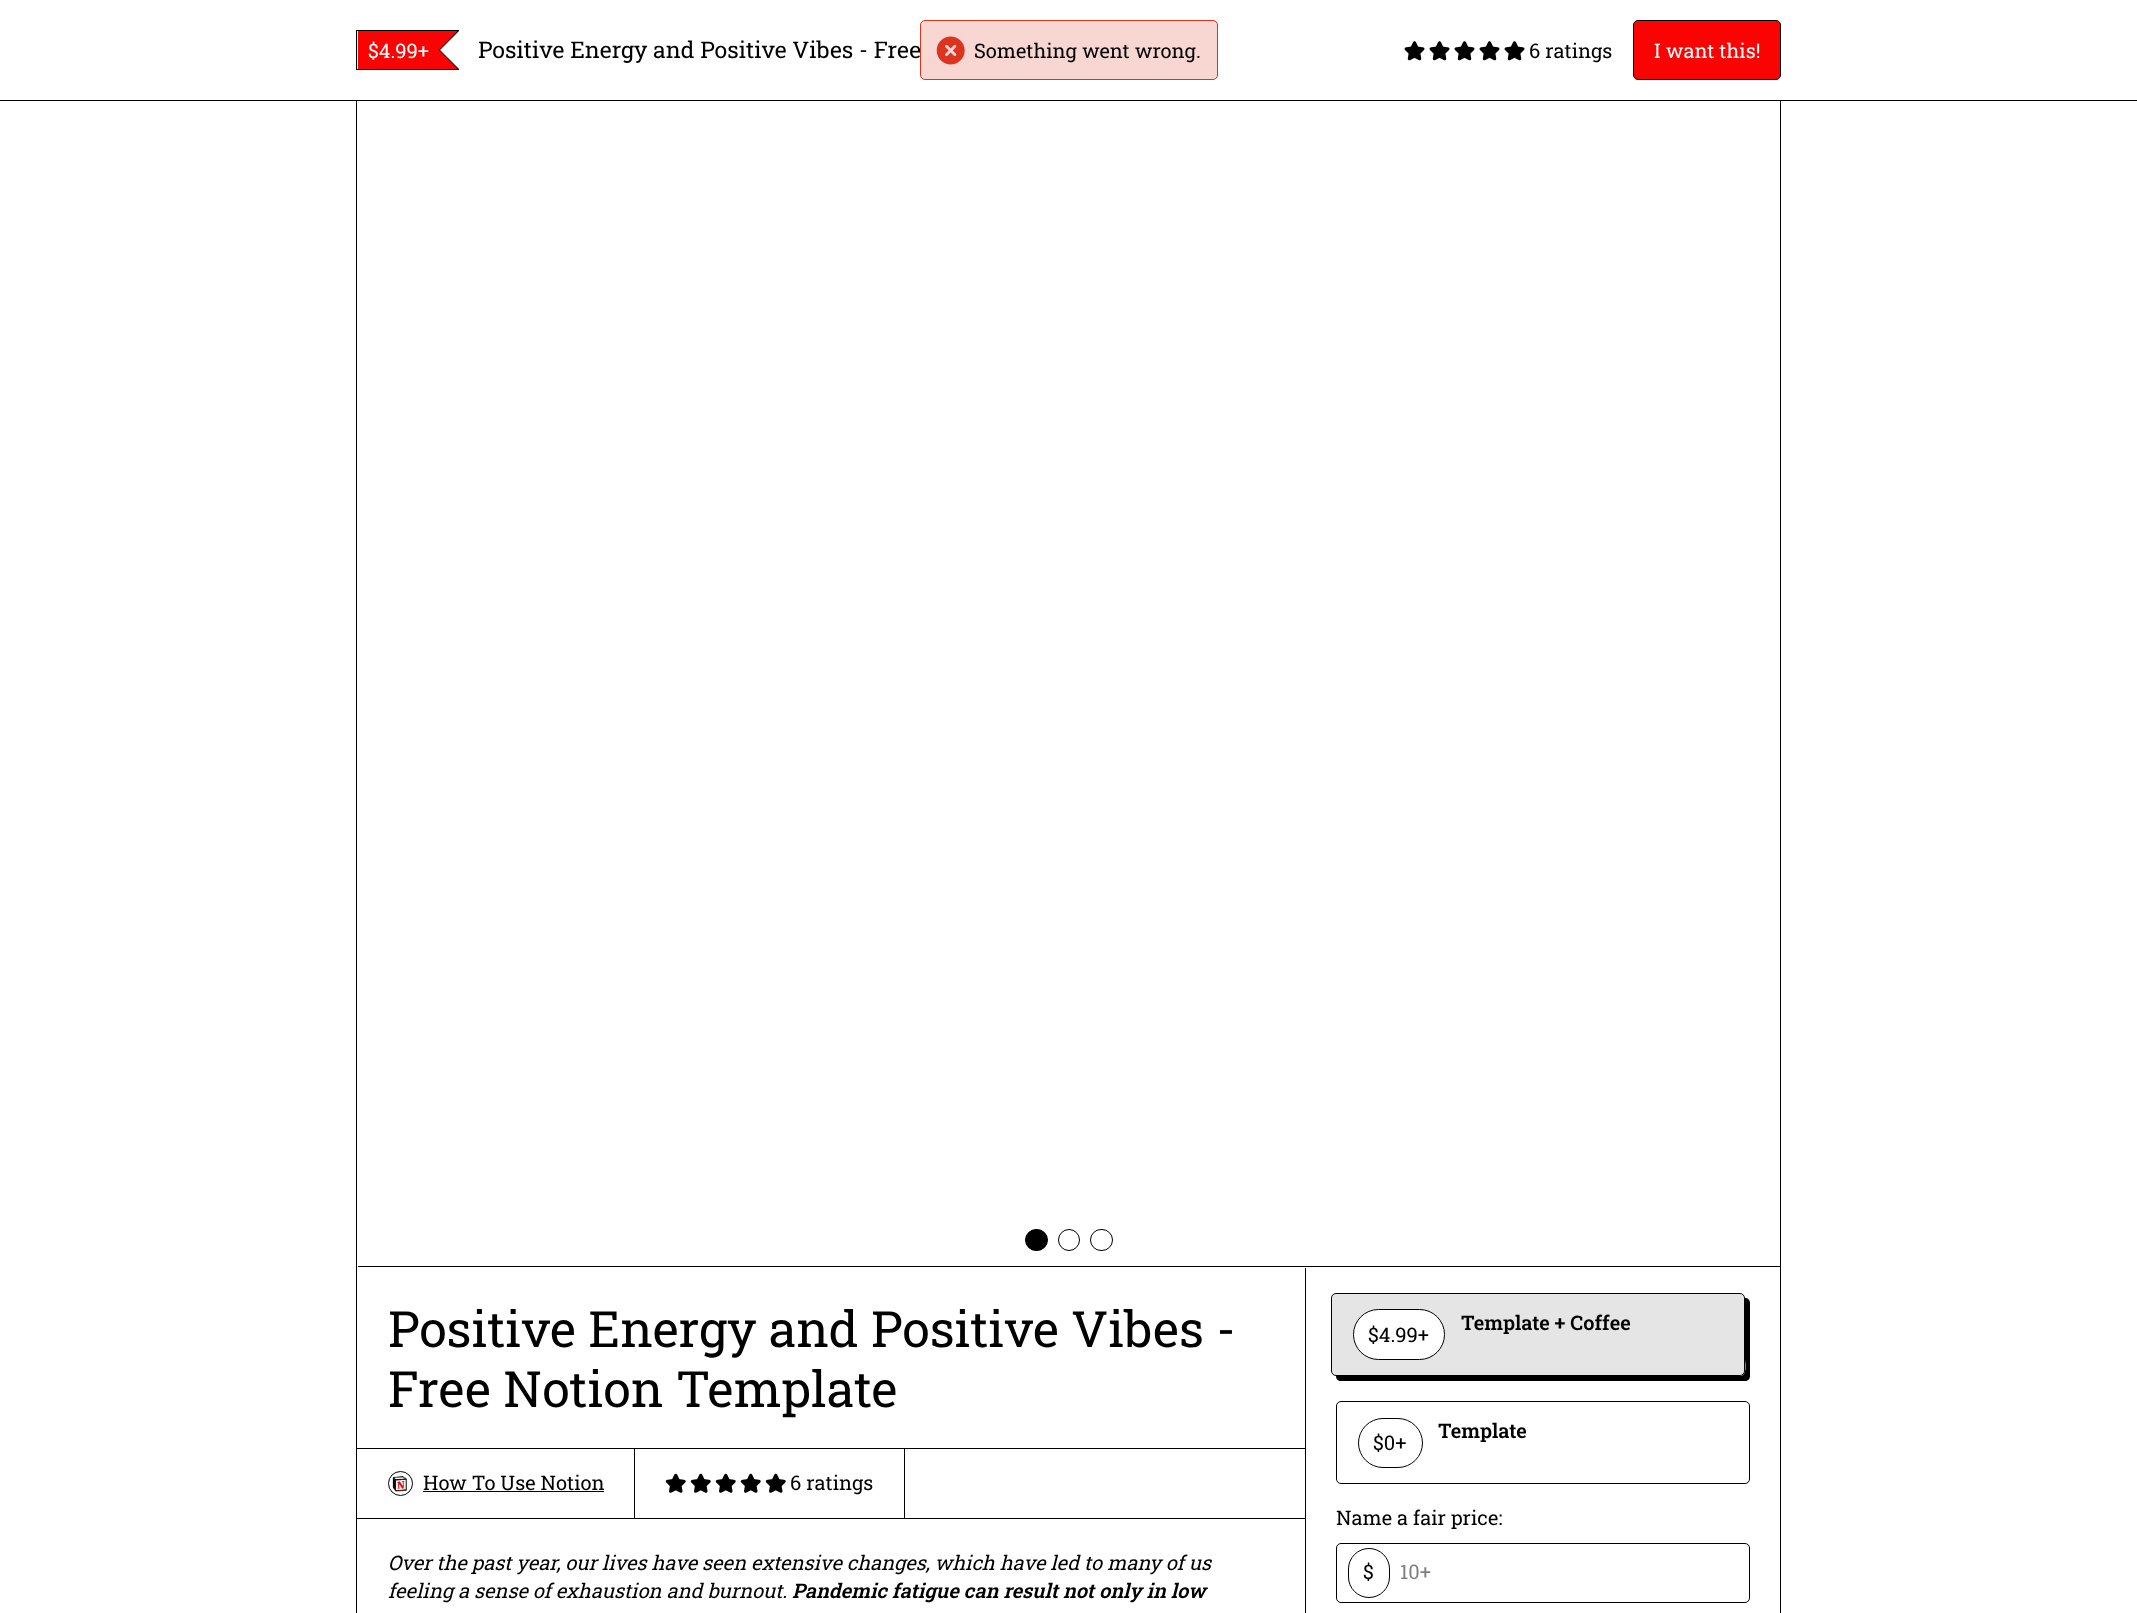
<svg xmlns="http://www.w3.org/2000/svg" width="2137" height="1613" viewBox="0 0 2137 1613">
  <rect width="100%" height="100%" fill="rgb(255,255,255)"/>
  <rect x="356.5" y="80.5" width="1424" height="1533" fill="none" stroke="rgb(0,0,0)"/>
  <path d="M0 100V101H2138V1V100Z" fill="rgb(0,0,0)"/>
  <rect x="356" y="80" width="1425" height="20" fill="rgb(255,255,255)"/>
  <rect x="356" y="30" width="103" height="1" fill="rgb(0,0,0)"/>
  <rect x="356" y="69" width="103" height="1" fill="rgb(0,0,0)"/>
  <rect x="356" y="30" width="1" height="40" fill="rgb(0,0,0)"/>
  <rect x="358" y="31" width="81" height="38" fill="rgb(250,3,3)"/>
  <path d="M439 31H459L440 50ZM459 69H439L440 50Z" fill="rgb(0,0,0)"/>
  <rect x="439" y="49" width="1" height="2" fill="rgb(0,0,0)"/>
  <path d="M437.5 31H457.5L439 50ZM457.5 69H437.5L439 50Z" fill="rgb(250,3,3)"/>
  <text x="368" y="58" font-family="Roboto Slab" font-size="20" fill="rgb(255,255,255)">$4.99+</text>
  <text x="478" y="58" font-family="Roboto Slab" font-size="23" fill="rgb(0,0,0)">Positive Energy and Positive Vibes - Free</text>
  <image x="1404" y="41" width="21" height="20" href="pic1.png"/>
  <image x="1429" y="41" width="21" height="20" href="pic1.png"/>
  <image x="1454" y="41" width="21" height="20" href="pic1.png"/>
  <image x="1479" y="41" width="21" height="20" href="pic1.png"/>
  <image x="1504" y="41" width="21" height="20" href="pic1.png"/>
  <text x="1529" y="58" font-family="Roboto Slab" font-size="20" fill="rgb(0,0,0)">6 ratings</text>
  <rect x="1633.5" y="20.5" width="147" height="59" rx="4.5" fill="rgb(250,3,3)" stroke="rgb(0,0,0)"/>
  <text x="1654" y="58" font-family="Roboto Slab" font-size="20" fill="rgb(255,255,255)">I want this!</text>
  <rect x="358" y="1266" width="1422" height="1" fill="rgb(0,0,0)"/>
  <rect x="1025.5" y="1229.5" width="22" height="21" rx="10.5" fill="rgb(0,0,0)" stroke="rgb(0,0,0)"/>
  <circle cx="1069" cy="1240" r="10.5" fill="none" stroke="rgb(0,0,0)"/>
  <rect x="1090.5" y="1229.5" width="22" height="21" rx="10.5" fill="none" stroke="rgb(0,0,0)"/>
  <rect x="1305" y="1268" width="1" height="345" fill="rgb(0,0,0)"/>
  <g font-family="Roboto Slab" font-size="50" fill="rgb(0,0,0)">
    <text>
      <tspan x="388" y="1347">Positive Energy and Positive Vibes -</tspan>
      <tspan x="388" y="1407">Free Notion Template</tspan>
    </text>
  </g>
  <rect x="905" y="1448" width="400" height="1" fill="rgb(0,0,0)"/>
  <rect x="356.5" y="1448.5" width="278" height="70" fill="none" stroke="rgb(0,0,0)"/>
  <circle cx="400.5" cy="1483.5" r="12" fill="none" stroke="rgb(0,0,0)"/>
  <image x="392" y="1476" width="15" height="16" href="pic2.png"/>
  <text x="423" y="1490" font-family="Roboto Slab" font-size="20" fill="rgb(0,0,0)">How To Use Notion</text>
  <rect x="423" y="1491" width="181" height="1" fill="rgb(0,0,0)"/>
  <rect x="634.5" y="1448.5" width="270" height="70" fill="none" stroke="rgb(0,0,0)"/>
  <image x="665" y="1473" width="21" height="20" href="pic3.png"/>
  <image x="690" y="1473" width="21" height="20" href="pic3.png"/>
  <image x="715" y="1473" width="21" height="20" href="pic3.png"/>
  <image x="740" y="1473" width="21" height="20" href="pic3.png"/>
  <image x="765" y="1473" width="21" height="20" href="pic3.png"/>
  <text x="790" y="1490" font-family="Roboto Slab" font-size="20" fill="rgb(0,0,0)">6 ratings</text>
  <rect x="905" y="1518" width="400" height="1" fill="rgb(0,0,0)"/>
  <g font-family="Roboto Slab" font-size="20" font-style="italic" fill="rgb(0,0,0)">
    <text>
      <tspan x="388" y="1570">Over the past year, our lives have seen extensive changes, which have led to many of us</tspan>
      <tspan x="388" y="1598">feeling a sense of exhaustion and burnout.</tspan>
    </text>
  </g>
  <text x="792" y="1598" font-family="Roboto Slab" font-size="20" font-weight="600" font-style="italic" fill="rgb(0,0,0)">Pandemic fatigue can result not only in low</text>
  <path d="M1336 1376C1336 1379 1338 1381 1341 1381H1745C1748 1381 1750 1379 1750 1376V1303C1750 1300 1748 1298 1745 1298V1359C1745 1362 1748 1376 1740 1376Z" fill="rgb(0,0,0)"/>
  <rect x="1331.5" y="1293.5" width="413" height="82" rx="4.5" fill="rgba(0,0,0,0.1)" stroke="rgb(0,0,0)"/>
  <rect x="1353.5" y="1309.5" width="91" height="50" rx="25" fill="rgb(255,255,255)" stroke="rgb(0,0,0)"/>
  <text x="1368" y="1342" font-family="Roboto Slab" font-size="20" fill="rgb(0,0,0)">$4.99+</text>
  <text x="1461" y="1330" font-family="Roboto Slab" font-size="20" font-weight="600" fill="rgb(0,0,0)">Template + Coffee</text>
  <rect x="1336.5" y="1401.5" width="413" height="82" rx="4.5" fill="none" stroke="rgb(0,0,0)"/>
  <rect x="1358.5" y="1418.5" width="64" height="49" rx="24.5" fill="none" stroke="rgb(0,0,0)"/>
  <text x="1373" y="1450" font-family="Roboto Slab" font-size="20" fill="rgb(0,0,0)">$0+</text>
  <text x="1438" y="1438" font-family="Roboto Slab" font-size="20" font-weight="600" fill="rgb(0,0,0)">Template</text>
  <text x="1336" y="1525" font-family="Roboto Slab" font-size="20" fill="rgb(0,0,0)">Name a fair price:</text>
  <rect x="1336.5" y="1543.5" width="413" height="59" rx="4.5" fill="none" stroke="rgb(0,0,0)"/>
  <rect x="1348.5" y="1548.5" width="41" height="49" rx="20.5" fill="none" stroke="rgb(0,0,0)"/>
  <text x="1363" y="1579" font-family="Roboto Slab" font-size="20" fill="rgb(0,0,0)">$</text>
  <text x="1400" y="1579" font-family="Roboto Slab" font-size="20" fill="rgb(128,128,128)">10+</text>
  <rect x="920.5" y="20.5" width="297" height="59" rx="4.5" fill="rgb(248,214,210)" stroke="rgb(220,52,30)"/>
  <image x="936" y="36" width="29" height="29" href="pic4.png"/>
  <text x="974" y="58" font-family="Roboto Slab" font-size="20" fill="rgb(0,0,0)">Something went wrong.</text>
</svg>
